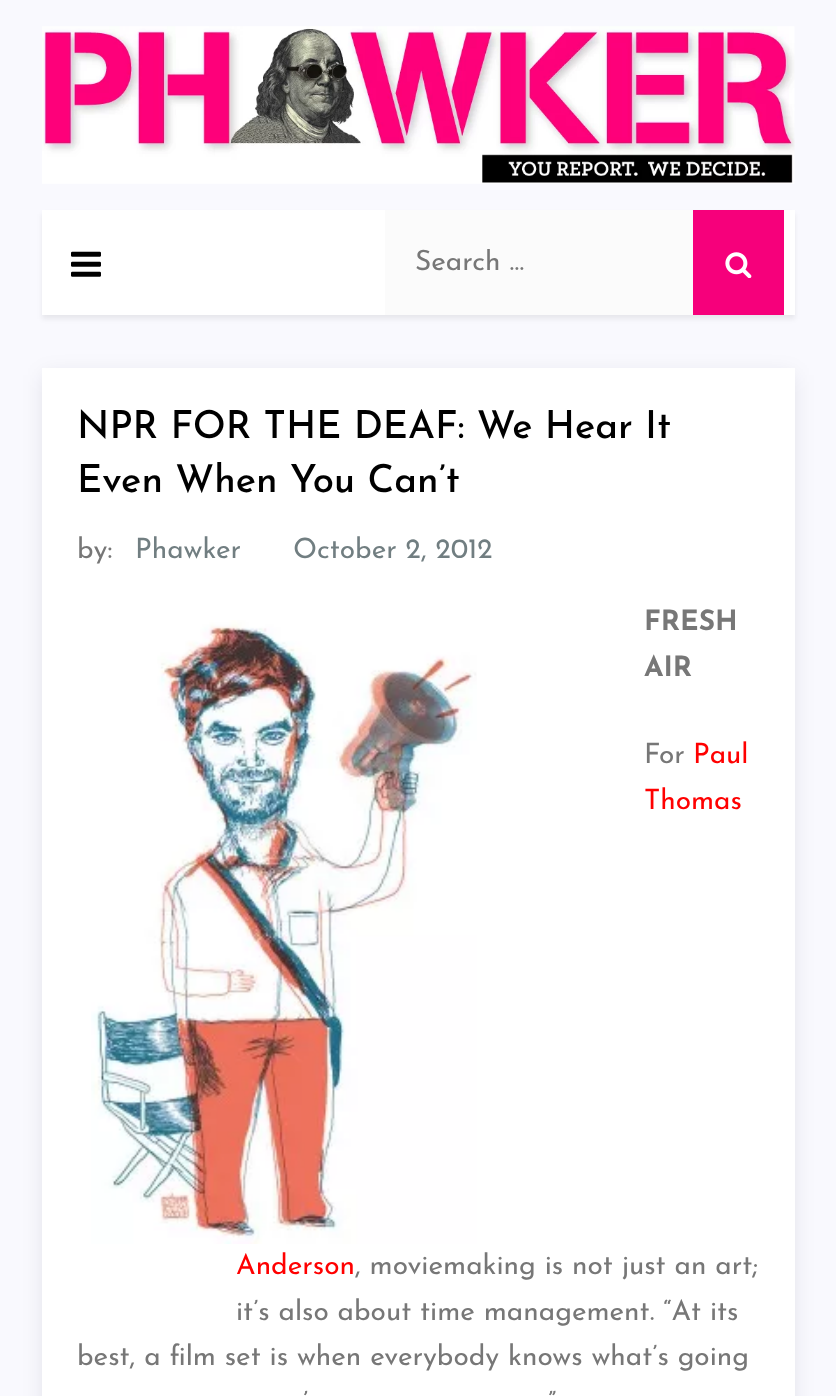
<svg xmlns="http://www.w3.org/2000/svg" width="836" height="1396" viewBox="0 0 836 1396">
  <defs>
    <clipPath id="clip1"><rect x="415" y="249" width="313" height="28"/></clipPath>
  </defs>
  <rect width="100%" height="100%" fill="rgb(249,249,254)"/>
  <image x="42" y="26" width="753" height="158" href="pic1.png"/>
  <rect x="42" y="214" width="753" height="105" fill="rgba(0,0,0,0.07)" filter="blur(2.5px)"/>
  <rect x="42" y="210" width="753" height="105" fill="rgb(255,255,255)"/>
  <image x="71" y="251" width="30" height="26" href="pic2.png"/>
  <rect x="385" y="210" width="308" height="105" fill="rgb(251,251,251)"/>
  <g clip-path="url(#clip1)">
    <text x="415" y="270" font-family="Josefin Sans" font-size="28" fill="rgb(119,119,119)">Search …</text>
  </g>
  <rect x="693" y="210" width="91" height="105" fill="rgb(246,0,123)"/>
  <image x="725" y="252" width="27" height="26" href="pic3.png"/>
  <rect x="44" y="375" width="749" height="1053" fill="rgba(7,10,25,0.1)" filter="blur(10.5px)"/>
  <rect x="42" y="368" width="753" height="1028" fill="rgb(255,255,255)"/>
  <g font-family="Josefin Sans" font-size="38.5" font-weight="500" fill="rgb(0,0,0)">
    <text>
      <tspan x="77" y="438">NPR FOR THE DEAF: We Hear It</tspan>
      <tspan x="77" y="492">Even When You Can’t</tspan>
    </text>
  </g>
  <text x="77" y="558" font-family="Josefin Sans" font-size="28" fill="rgb(119,119,119)">by:</text>
  <g font-family="Josefin Sans" font-size="28" fill="rgb(113,126,129)">
    <text x="135" y="558">Phawker</text>
    <text x="293" y="558">October 2, 2012</text>
  </g>
  <image x="91" y="620" width="386" height="624" href="pic4.png"/>
  <g font-family="Josefin Sans" font-size="28" font-weight="bold" fill="rgb(119,119,119)">
    <text>
      <tspan x="644" y="630">FRESH</tspan>
      <tspan x="644" y="676">AIR</tspan>
    </text>
  </g>
  <text x="644" y="763" font-family="Josefin Sans" font-size="28" fill="rgb(119,119,119)">For</text>
  <g font-family="Josefin Sans" font-size="28" fill="rgb(255,0,0)">
    <text x="693" y="763">Paul</text>
    <text x="644" y="809">Thomas</text>
    <text x="236" y="1274">Anderson</text>
  </g>
  <g font-family="Josefin Sans" font-size="28" fill="rgb(119,119,119)">
    <text x="355" y="1274">, moviemaking is not just an art;</text>
    <text x="236" y="1320">it’s also about time management. “At its</text>
    <text x="77" y="1365">best, a film set is when everybody knows what’s going</text>
    <text x="303" y="1411">’</text>
    <text x="548" y="1411">”</text>
  </g>
</svg>
